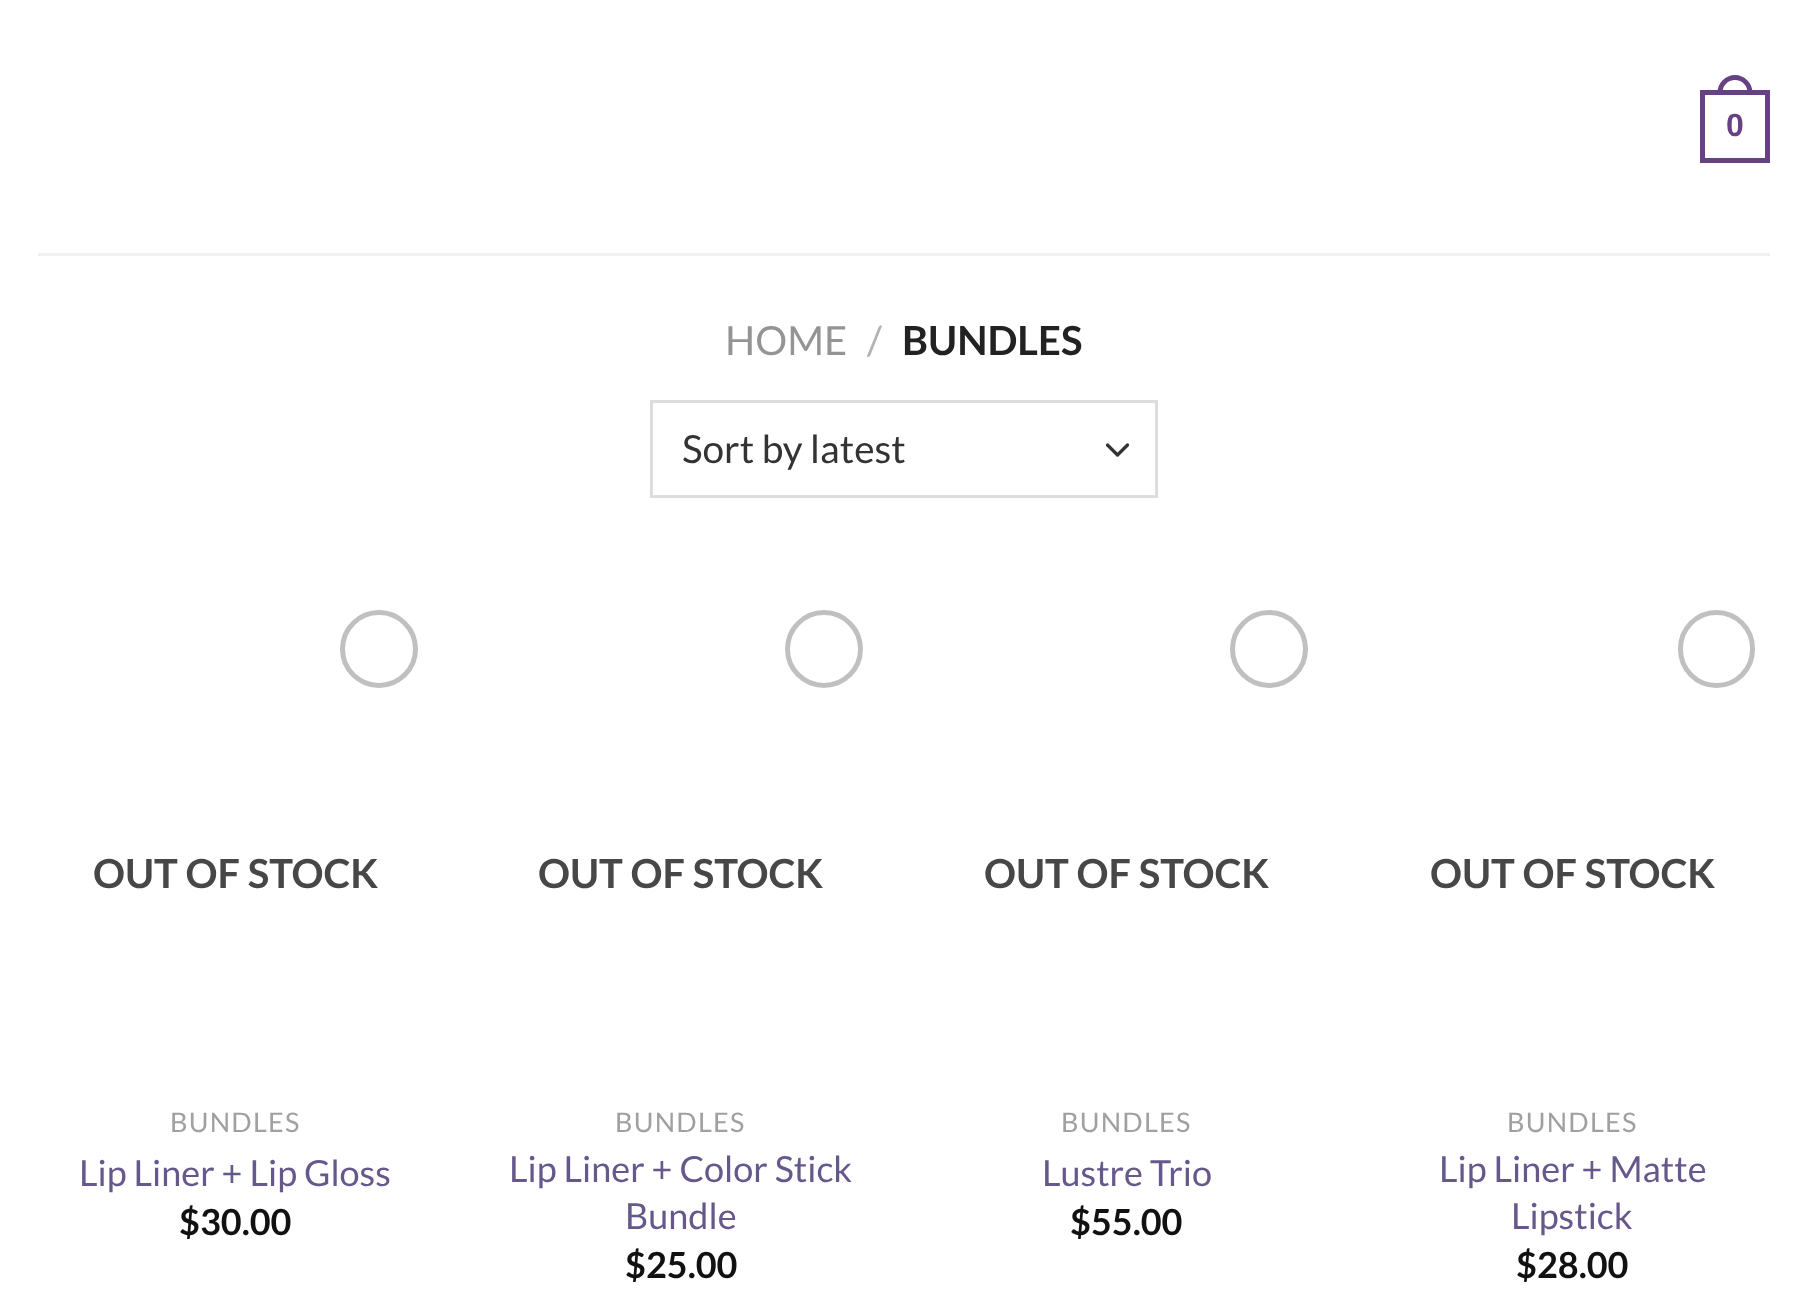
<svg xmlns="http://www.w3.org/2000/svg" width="1807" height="1311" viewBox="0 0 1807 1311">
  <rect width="100%" height="100%" fill="rgb(255,255,255)"/>
  <rect x="1702.5" y="92.5" width="65" height="68" fill="none" stroke="rgb(102,66,132)" stroke-width="5"/>
  <path d="M1735 75C1744.5 75 1752.5 83 1752.5 92.5V95H1717.5V92.5C1717.5 83 1725.5 75 1735 75ZM1735 80C1742 80 1747.5 85.5 1747.5 92.5V95H1722.5V92.5C1722.5 85.5 1728 80 1735 80Z" fill="rgb(102,66,132)" fill-rule="evenodd"/>
  <text x="1726" y="136" font-family="Liberation Sans" font-size="32" font-weight="bold" fill="rgb(102,66,132)">0</text>
  <rect x="38" y="253" width="1732" height="3" fill="rgb(241,241,241)"/>
  <text x="725" y="355" font-family="Lato" font-size="40" fill="rgb(148,148,148)">HOME</text>
  <text x="867" y="355" font-family="Lato" font-size="40" fill="rgb(178,178,178)">/</text>
  <text x="902" y="355" font-family="Lato" font-size="40" font-weight="bold" fill="rgb(34,34,34)">BUNDLES</text>
  <path d="M1107.5 445L1117.5 455L1127.5 445" fill="none" stroke="rgb(51,51,51)" stroke-width="3.3" stroke-linecap="round" stroke-linejoin="round"/>
  <rect x="651.5" y="401.5" width="505" height="95" fill="none" stroke="rgb(221,221,221)" stroke-width="3"/>
  <text x="682" y="463" font-family="Lato" font-size="38.75" fill="rgb(51,51,51)">Sort by latest</text>
  <circle cx="379" cy="649" r="36.5" fill="none" stroke="rgb(192,192,192)" stroke-width="5"/>
  <text x="93" y="888" font-family="Lato" font-size="40" font-weight="bold" fill="rgb(71,71,71)">OUT OF STOCK</text>
  <text x="170" y="1132" font-family="Lato" font-size="27" letter-spacing="1.25" fill="rgb(160,160,160)">BUNDLES</text>
  <text x="79" y="1186" font-family="Lato" font-size="36" fill="rgb(103,88,140)">Lip Liner + Lip Gloss</text>
  <text x="179" y="1235" font-family="Lato" font-size="36" font-weight="bold" fill="rgb(17,17,17)">$30.00</text>
  <circle cx="824" cy="649" r="36.5" fill="none" stroke="rgb(192,192,192)" stroke-width="5"/>
  <text x="538" y="888" font-family="Lato" font-size="40" font-weight="bold" fill="rgb(71,71,71)">OUT OF STOCK</text>
  <text x="615" y="1132" font-family="Lato" font-size="27" letter-spacing="1.25" fill="rgb(160,160,160)">BUNDLES</text>
  <g font-family="Lato" font-size="36" fill="rgb(103,88,140)">
    <text x="509" y="1182">Lip Liner + Color Stick</text>
    <text x="625" y="1229">Bundle</text>
  </g>
  <text x="625" y="1278" font-family="Lato" font-size="36" font-weight="bold" fill="rgb(17,17,17)">$25.00</text>
  <circle cx="1269" cy="649" r="36.5" fill="none" stroke="rgb(192,192,192)" stroke-width="5"/>
  <text x="984" y="888" font-family="Lato" font-size="40" font-weight="bold" fill="rgb(71,71,71)">OUT OF STOCK</text>
  <text x="1061" y="1132" font-family="Lato" font-size="27" letter-spacing="1.25" fill="rgb(160,160,160)">BUNDLES</text>
  <text x="1042" y="1186" font-family="Lato" font-size="36" fill="rgb(103,88,140)">Lustre Trio</text>
  <text x="1070" y="1235" font-family="Lato" font-size="36" font-weight="bold" fill="rgb(17,17,17)">$55.00</text>
  <rect x="1680.5" y="612.5" width="72" height="73" rx="36" fill="none" stroke="rgb(192,192,192)" stroke-width="5"/>
  <text x="1430" y="888" font-family="Lato" font-size="40" font-weight="bold" fill="rgb(71,71,71)">OUT OF STOCK</text>
  <text x="1507" y="1132" font-family="Lato" font-size="27" letter-spacing="1.25" fill="rgb(160,160,160)">BUNDLES</text>
  <g font-family="Lato" font-size="36" fill="rgb(103,88,140)">
    <text x="1439" y="1182">Lip Liner + Matte</text>
    <text x="1511" y="1229">Lipstick</text>
  </g>
  <text x="1516" y="1278" font-family="Lato" font-size="36" font-weight="bold" fill="rgb(17,17,17)">$28.00</text>
</svg>
